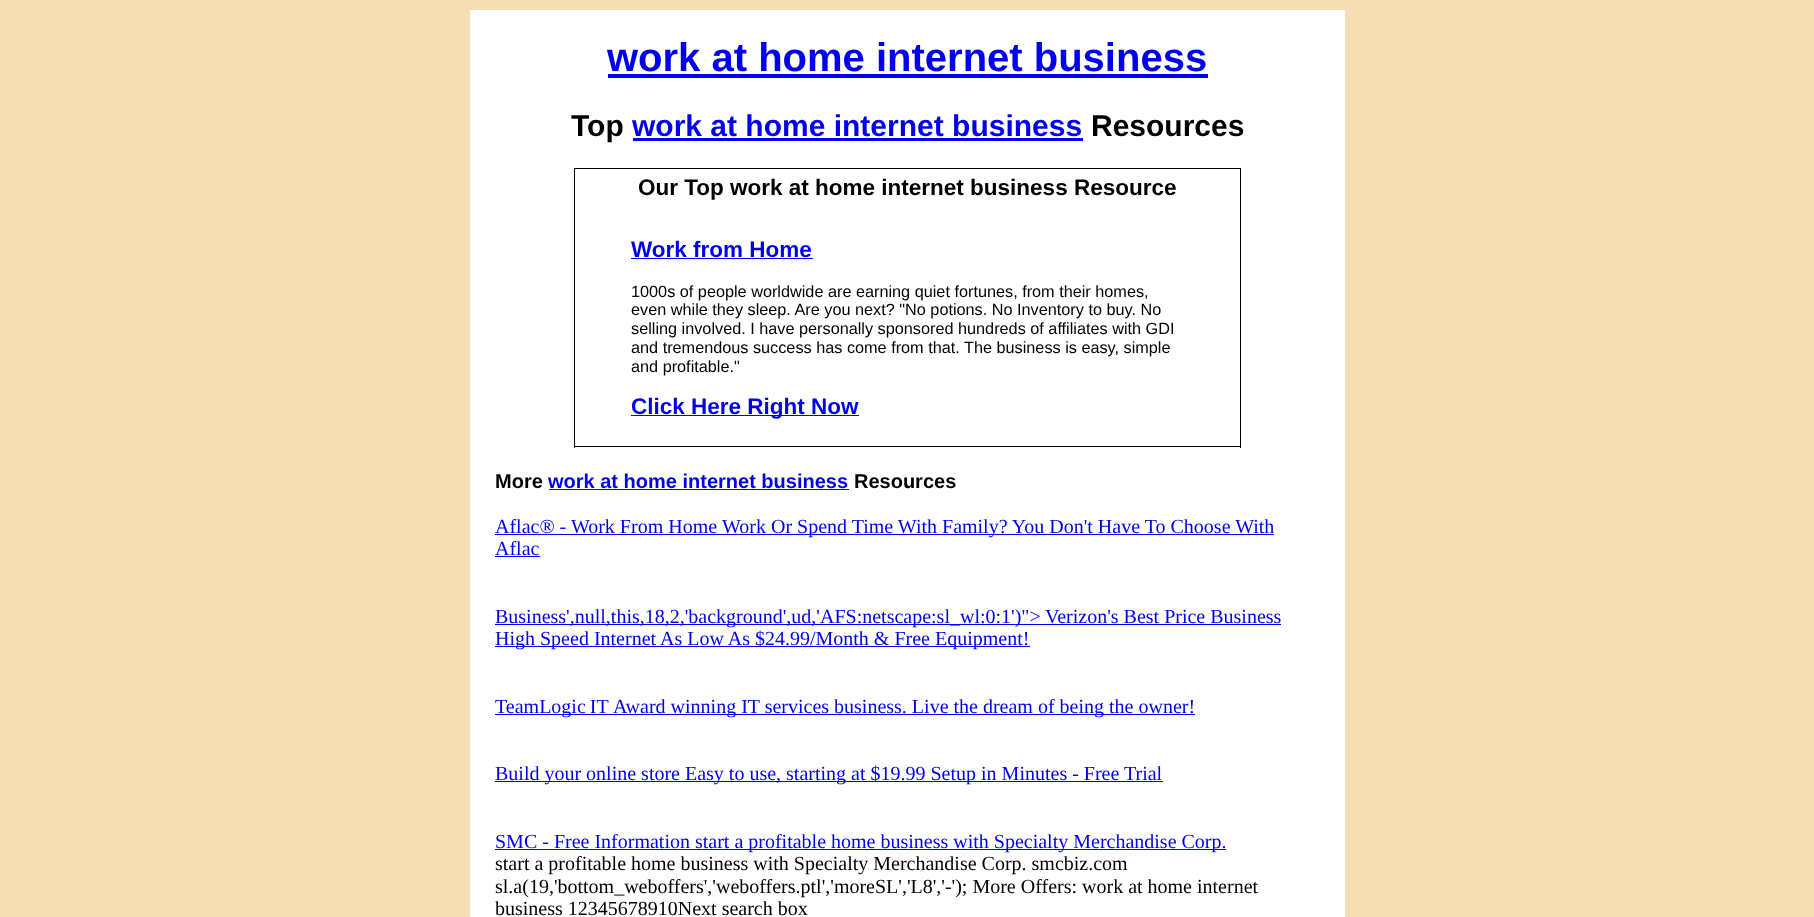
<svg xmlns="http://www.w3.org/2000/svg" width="1814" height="917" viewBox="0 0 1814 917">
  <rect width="100%" height="100%" fill="rgb(245,222,179)"/>
  <rect x="470" y="10" width="875" height="907" fill="rgb(255,255,255)"/>
  <text x="607" y="71" font-family="Liberation Sans" font-size="40" font-weight="bold" fill="rgb(0,0,238)">work at home internet business</text>
  <rect x="608" y="74" width="600" height="4" fill="rgb(0,0,238)"/>
  <text x="571" y="136" font-family="Liberation Sans" font-size="30" font-weight="bold" fill="rgb(0,0,0)">Top</text>
  <text x="632" y="136" font-family="Liberation Sans" font-size="30" font-weight="bold" fill="rgb(0,0,238)">work at home internet business</text>
  <rect x="633" y="138" width="450" height="3" fill="rgb(0,0,238)"/>
  <text x="1091" y="136" font-family="Liberation Sans" font-size="30" font-weight="bold" fill="rgb(0,0,0)">Resources</text>
  <rect x="574" y="168" width="667" height="1" fill="rgb(0,0,0)"/>
  <rect x="1240" y="208" width="1" height="240" fill="rgb(0,0,0)"/>
  <rect x="1240" y="168" width="1" height="41" fill="rgb(0,0,0)"/>
  <rect x="574" y="446" width="667" height="1" fill="rgb(0,0,0)"/>
  <rect x="574" y="208" width="1" height="240" fill="rgb(0,0,0)"/>
  <rect x="574" y="168" width="1" height="41" fill="rgb(0,0,0)"/>
  <text x="638" y="195" font-family="Liberation Sans" font-size="22.5" font-weight="bold" fill="rgb(0,0,0)">Our Top work at home internet business Resource</text>
  <text x="631" y="257" font-family="Liberation Sans" font-size="22.5" font-weight="bold" fill="rgb(0,0,238)">Work from Home</text>
  <rect x="631" y="258" width="182" height="1" fill="rgb(0,0,238)"/>
  <g font-family="Liberation Sans" font-size="16.25" fill="rgb(0,0,0)">
    <text>
      <tspan x="631" y="297">1000s of people worldwide are earning quiet fortunes, from their homes,</tspan>
      <tspan x="631" y="315">even while they sleep. Are you next? "No potions. No Inventory to buy. No</tspan>
      <tspan x="631" y="334">selling involved. I have personally sponsored hundreds of affiliates with GDI</tspan>
      <tspan x="631" y="353">and tremendous success has come from that. The business is easy, simple</tspan>
      <tspan x="631" y="372">and profitable."</tspan>
    </text>
  </g>
  <rect x="631" y="415" width="228" height="1" fill="rgb(0,0,238)"/>
  <text x="631" y="414" font-family="Liberation Sans" font-size="22.5" font-weight="bold" fill="rgb(0,0,238)">Click Here Right Now</text>
  <text x="495" y="488" font-family="Liberation Sans" font-size="20" font-weight="bold" fill="rgb(0,0,0)">More</text>
  <text x="548" y="488" font-family="Liberation Sans" font-size="20" font-weight="bold" fill="rgb(0,0,238)">work at home internet business</text>
  <rect x="549" y="489" width="300" height="1" fill="rgb(0,0,238)"/>
  <text x="854" y="488" font-family="Liberation Sans" font-size="20" font-weight="bold" fill="rgb(0,0,0)">Resources</text>
  <text x="495" y="533" font-family="Liberation Serif" font-size="20" fill="rgb(0,0,238)">Aflac® - Work From Home</text>
  <rect x="495" y="534" width="779" height="1" fill="rgb(0,0,238)"/>
  <g font-family="Liberation Serif" font-size="20" fill="rgb(0,0,238)">
    <text x="722" y="533">Work Or Spend Time With Family? You Don't Have To Choose With</text>
    <text x="495" y="555">Aflac</text>
  </g>
  <rect x="495" y="556" width="45" height="1" fill="rgb(0,0,238)"/>
  <rect x="495" y="624" width="786" height="1" fill="rgb(0,0,238)"/>
  <g font-family="Liberation Serif" font-size="20" fill="rgb(0,0,238)">
    <text x="495" y="623">Business',null,this,18,2,'background',ud,'AFS:netscape:sl_wl:0:1')"&gt;</text>
    <text x="1045" y="623">Verizon's Best Price Business</text>
  </g>
  <rect x="495" y="646" width="535" height="1" fill="rgb(0,0,238)"/>
  <text x="495" y="645" font-family="Liberation Serif" font-size="20" fill="rgb(0,0,238)">High Speed Internet As Low As $24.99/Month &amp; Free Equipment!</text>
  <rect x="495" y="714" width="700" height="1" fill="rgb(0,0,238)"/>
  <g font-family="Liberation Serif" font-size="20" fill="rgb(0,0,238)">
    <text x="495" y="713" word-spacing="-1">TeamLogic IT</text>
    <text x="613" y="713">Award winning IT services business. Live the dream of being the owner!</text>
  </g>
  <rect x="495" y="781" width="668" height="1" fill="rgb(0,0,238)"/>
  <text x="495" y="780" font-family="Liberation Serif" font-size="20" fill="rgb(0,0,238)">Build your online store Easy to use, starting at $19.99 Setup in Minutes - Free Trial</text>
  <rect x="495" y="849" width="731" height="1" fill="rgb(0,0,238)"/>
  <text x="495" y="848" font-family="Liberation Serif" font-size="20" fill="rgb(0,0,238)">SMC - Free Information start a profitable home business with Specialty Merchandise Corp.</text>
  <g font-family="Liberation Serif" font-size="20" fill="rgb(0,0,0)">
    <text>
      <tspan x="495" y="870">start a profitable home business with Specialty Merchandise Corp. smcbiz.com</tspan>
      <tspan x="495" y="893">sl.a(19,'bottom_weboffers','weboffers.ptl','moreSL','L8','-'); More Offers: work at home internet</tspan>
      <tspan x="495" y="915">business 12345678910Next search box</tspan>
    </text>
  </g>
</svg>
